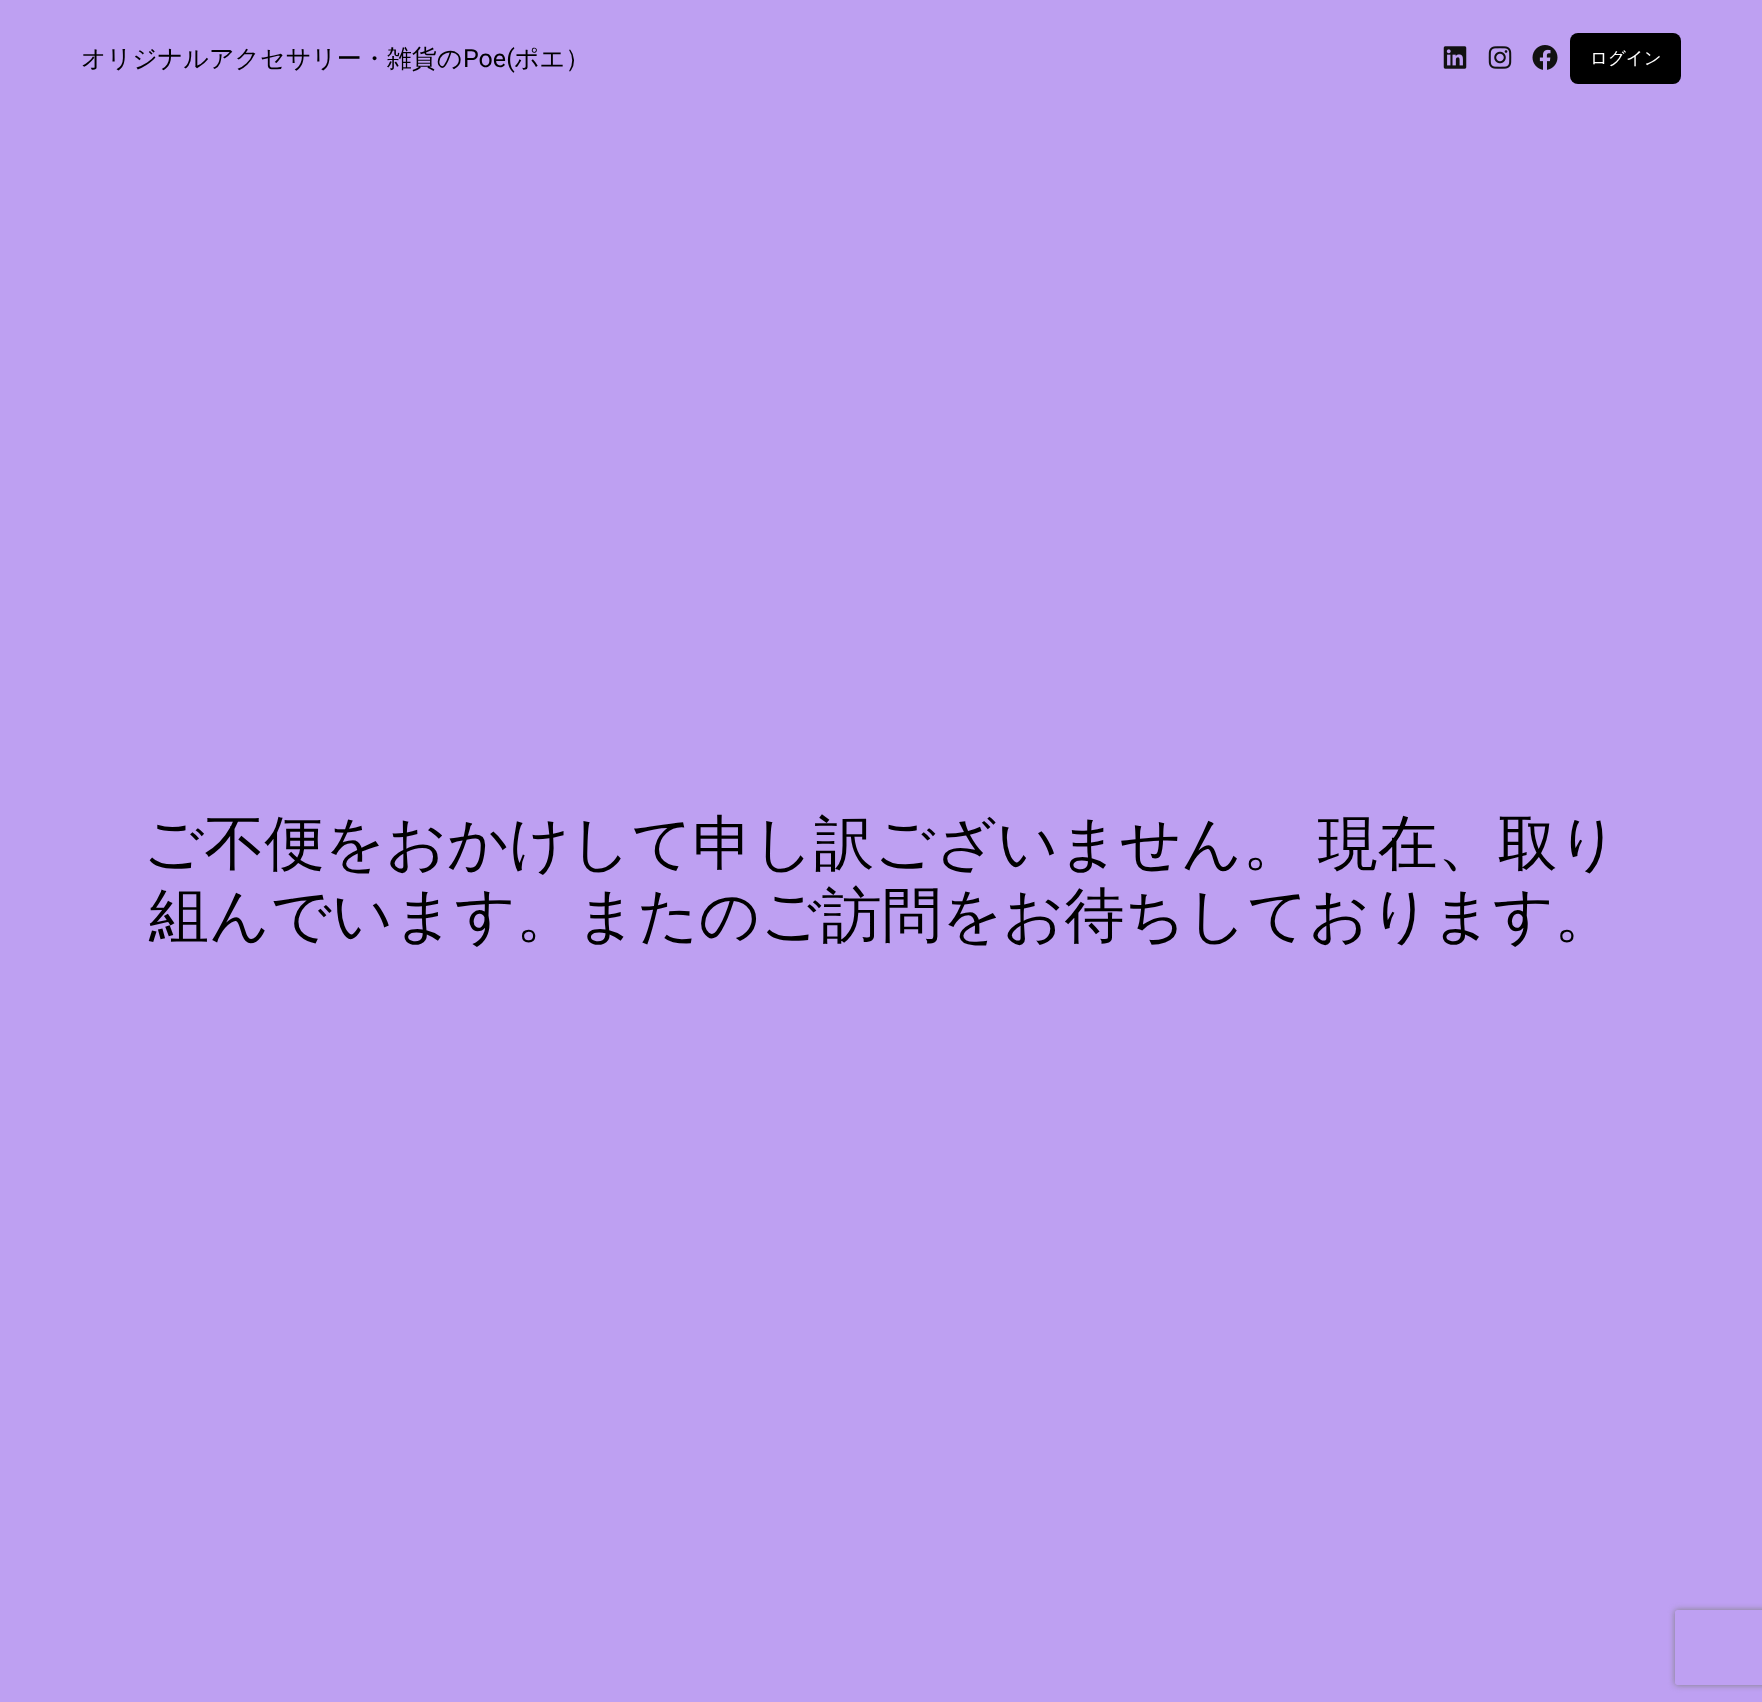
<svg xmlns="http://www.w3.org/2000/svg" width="1762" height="1702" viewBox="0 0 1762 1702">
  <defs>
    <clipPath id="clip1"><path d="M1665 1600H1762V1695H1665ZM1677.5 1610H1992.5C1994 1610 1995 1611 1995 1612.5V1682.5C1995 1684 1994 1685 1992.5 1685H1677.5C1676 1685 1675 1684 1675 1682.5V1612.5C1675 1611 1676 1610 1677.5 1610Z" clip-rule="evenodd"/></clipPath>
  </defs>
  <rect width="100%" height="100%" fill="rgb(190,160,242)"/>
  <text x="81" y="67" font-family="WenQuanYi Zen Hei" font-size="25" font-weight="500" fill="rgb(0,0,0)">オリジナルアクセサリー・雑貨の</text>
  <text x="463" y="67" font-family="Roboto" font-size="25" fill="rgb(0,0,0)">Poe(</text>
  <text x="514" y="67" font-family="WenQuanYi Zen Hei" font-size="25" font-weight="500" fill="rgb(0,0,0)">ポエ）</text>
  <image x="1443" y="46" width="24" height="23" href="pic1.png"/>
  <image x="1488" y="46" width="24" height="23" href="pic2.png"/>
  <image x="1532" y="45" width="26" height="25" href="pic3.png"/>
  <rect x="1570" y="33" width="111" height="51" rx="8" fill="rgb(0,0,0)"/>
  <text x="1590" y="64" font-family="WenQuanYi Zen Hei" font-size="17.5" font-weight="500" fill="rgb(255,255,255)">ログイン</text>
  <g font-family="WenQuanYi Zen Hei" font-size="60" font-weight="500" fill="rgb(0,0,0)">
    <text x="143" y="864" word-spacing="-3">ご不便をおかけして申し訳ございません。 現在、取り</text>
    <text x="149" y="936">組んでいます。またのご訪問をお待ちしております。</text>
  </g>
  <g clip-path="url(#clip1)">
    <rect x="1675" y="1610" width="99" height="75" rx="2.5" fill="rgb(128,128,128)" filter="blur(3px)"/>
  </g>
</svg>
